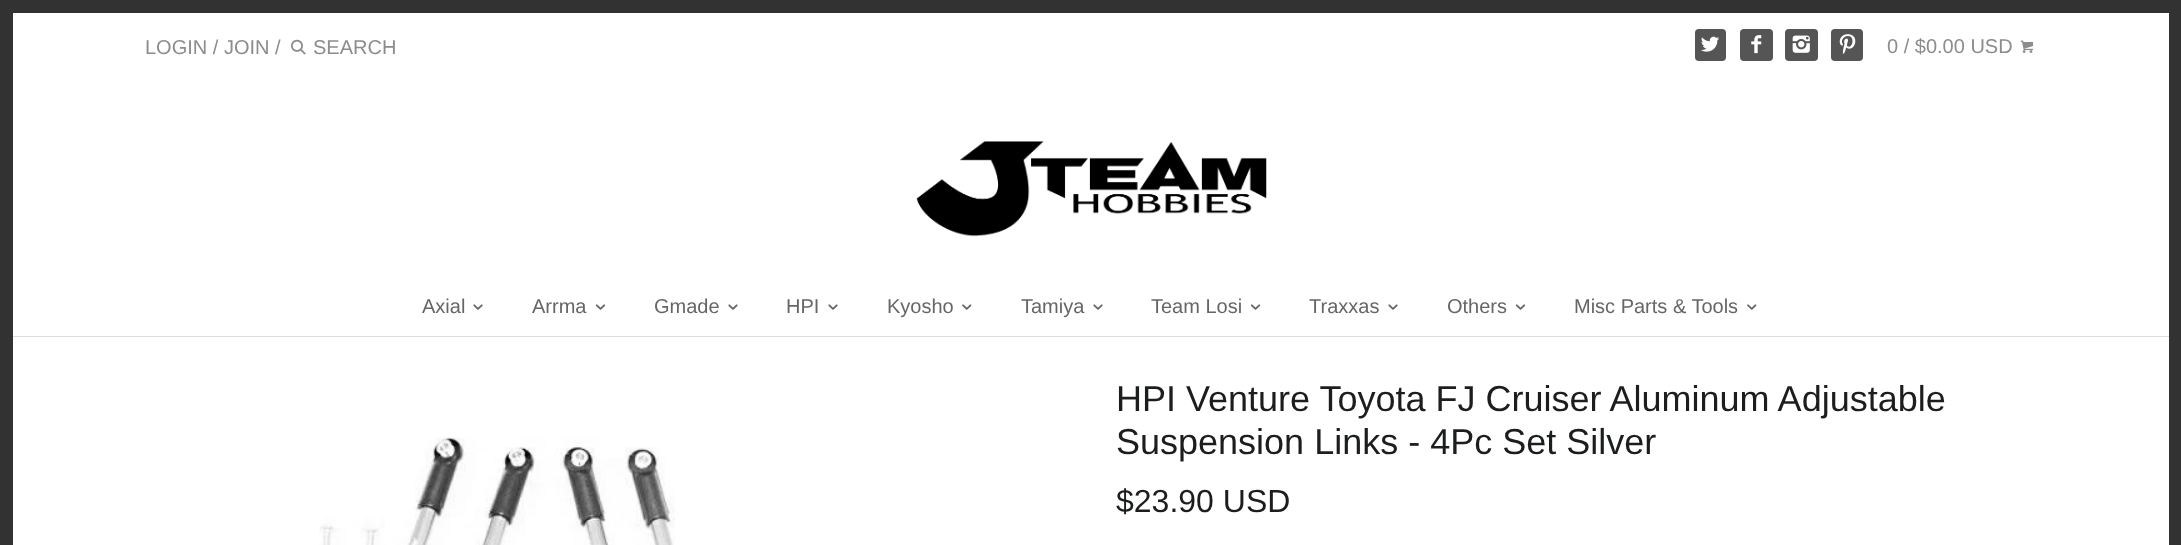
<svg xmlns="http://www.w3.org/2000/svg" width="2181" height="545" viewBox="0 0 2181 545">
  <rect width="100%" height="100%" fill="rgb(255,255,255)"/>
  <rect x="6.5" y="6.5" width="2168" height="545" fill="none" stroke="rgb(50,50,50)" stroke-width="13"/>
  <rect x="2168" y="13" width="1" height="532" fill="rgb(255,255,255)"/>
  <text x="145" y="54" font-family="Liberation Sans" font-size="20" fill="rgb(139,140,140)">LOGIN / JOIN /</text>
  <image x="290" y="39" width="16" height="16" href="pic1.png"/>
  <text x="313" y="54" font-family="Liberation Sans" font-size="20" fill="rgb(139,140,140)">SEARCH</text>
  <rect x="1695" y="29" width="31" height="32" rx="4" fill="rgb(85,85,85)"/>
  <image x="1701" y="36" width="18" height="16" href="pic2.png"/>
  <rect x="1740" y="29" width="33" height="32" rx="4" fill="rgb(85,85,85)"/>
  <image x="1751" y="35" width="11" height="19" href="pic3.png"/>
  <rect x="1785" y="29" width="33" height="32" rx="4" fill="rgb(85,85,85)"/>
  <image x="1792" y="35" width="18" height="18" href="pic4.png"/>
  <rect x="1831" y="29" width="32" height="32" rx="4" fill="rgb(85,85,85)"/>
  <image x="1839" y="34" width="17" height="20" href="pic5.png"/>
  <text x="1887" y="53" font-family="Liberation Sans" font-size="20" fill="rgb(139,140,140)">0 / $0.00 USD</text>
  <image x="2020" y="40" width="14" height="13" href="pic6.png"/>
  <image x="916" y="141" width="351" height="96" href="pic7.png"/>
  <text x="422" y="313" font-family="Liberation Sans" font-size="20" fill="rgb(102,102,102)">Axial</text>
  <image x="473" y="304" width="10" height="6" href="pic8.png"/>
  <text x="532" y="313" font-family="Liberation Sans" font-size="20" fill="rgb(102,102,102)">Arrma</text>
  <image x="595" y="304" width="11" height="6" href="pic9.png"/>
  <text x="654" y="313" font-family="Liberation Sans" font-size="20" fill="rgb(102,102,102)">Gmade</text>
  <image x="728" y="304" width="10" height="6" href="pic8.png"/>
  <text x="786" y="313" font-family="Liberation Sans" font-size="20" fill="rgb(102,102,102)">HPI</text>
  <image x="828" y="304" width="10" height="6" href="pic8.png"/>
  <text x="887" y="313" font-family="Liberation Sans" font-size="20" fill="rgb(102,102,102)">Kyosho</text>
  <image x="962" y="304" width="10" height="6" href="pic10.png"/>
  <text x="1021" y="313" font-family="Liberation Sans" font-size="20" fill="rgb(102,102,102)">Tamiya</text>
  <image x="1093" y="304" width="10" height="6" href="pic8.png"/>
  <text x="1151" y="313" font-family="Liberation Sans" font-size="20" fill="rgb(102,102,102)">Team Losi</text>
  <image x="1250" y="304" width="11" height="6" href="pic9.png"/>
  <text x="1309" y="313" font-family="Liberation Sans" font-size="20" fill="rgb(102,102,102)">Traxxas</text>
  <image x="1388" y="304" width="10" height="6" href="pic8.png"/>
  <text x="1447" y="313" font-family="Liberation Sans" font-size="20" fill="rgb(102,102,102)">Others</text>
  <image x="1515" y="304" width="11" height="6" href="pic9.png"/>
  <text x="1574" y="313" font-family="Liberation Sans" font-size="20" fill="rgb(102,102,102)">Misc Parts &amp; Tools</text>
  <image x="1747" y="304" width="10" height="6" href="pic10.png"/>
  <rect x="13" y="336" width="2156" height="1" fill="rgb(221,221,221)"/>
  <image x="319" y="437" width="356" height="108" href="pic11.png"/>
  <g font-family="Liberation Sans" font-size="36" fill="rgb(28,29,29)">
    <text>
      <tspan x="1116" y="411">HPI Venture Toyota FJ Cruiser Aluminum Adjustable</tspan>
      <tspan x="1116" y="454">Suspension Links - 4Pc Set Silver</tspan>
    </text>
  </g>
  <text x="1116" y="512" font-family="Liberation Sans" font-size="32" fill="rgb(28,29,29)">$23.90 USD</text>
</svg>
